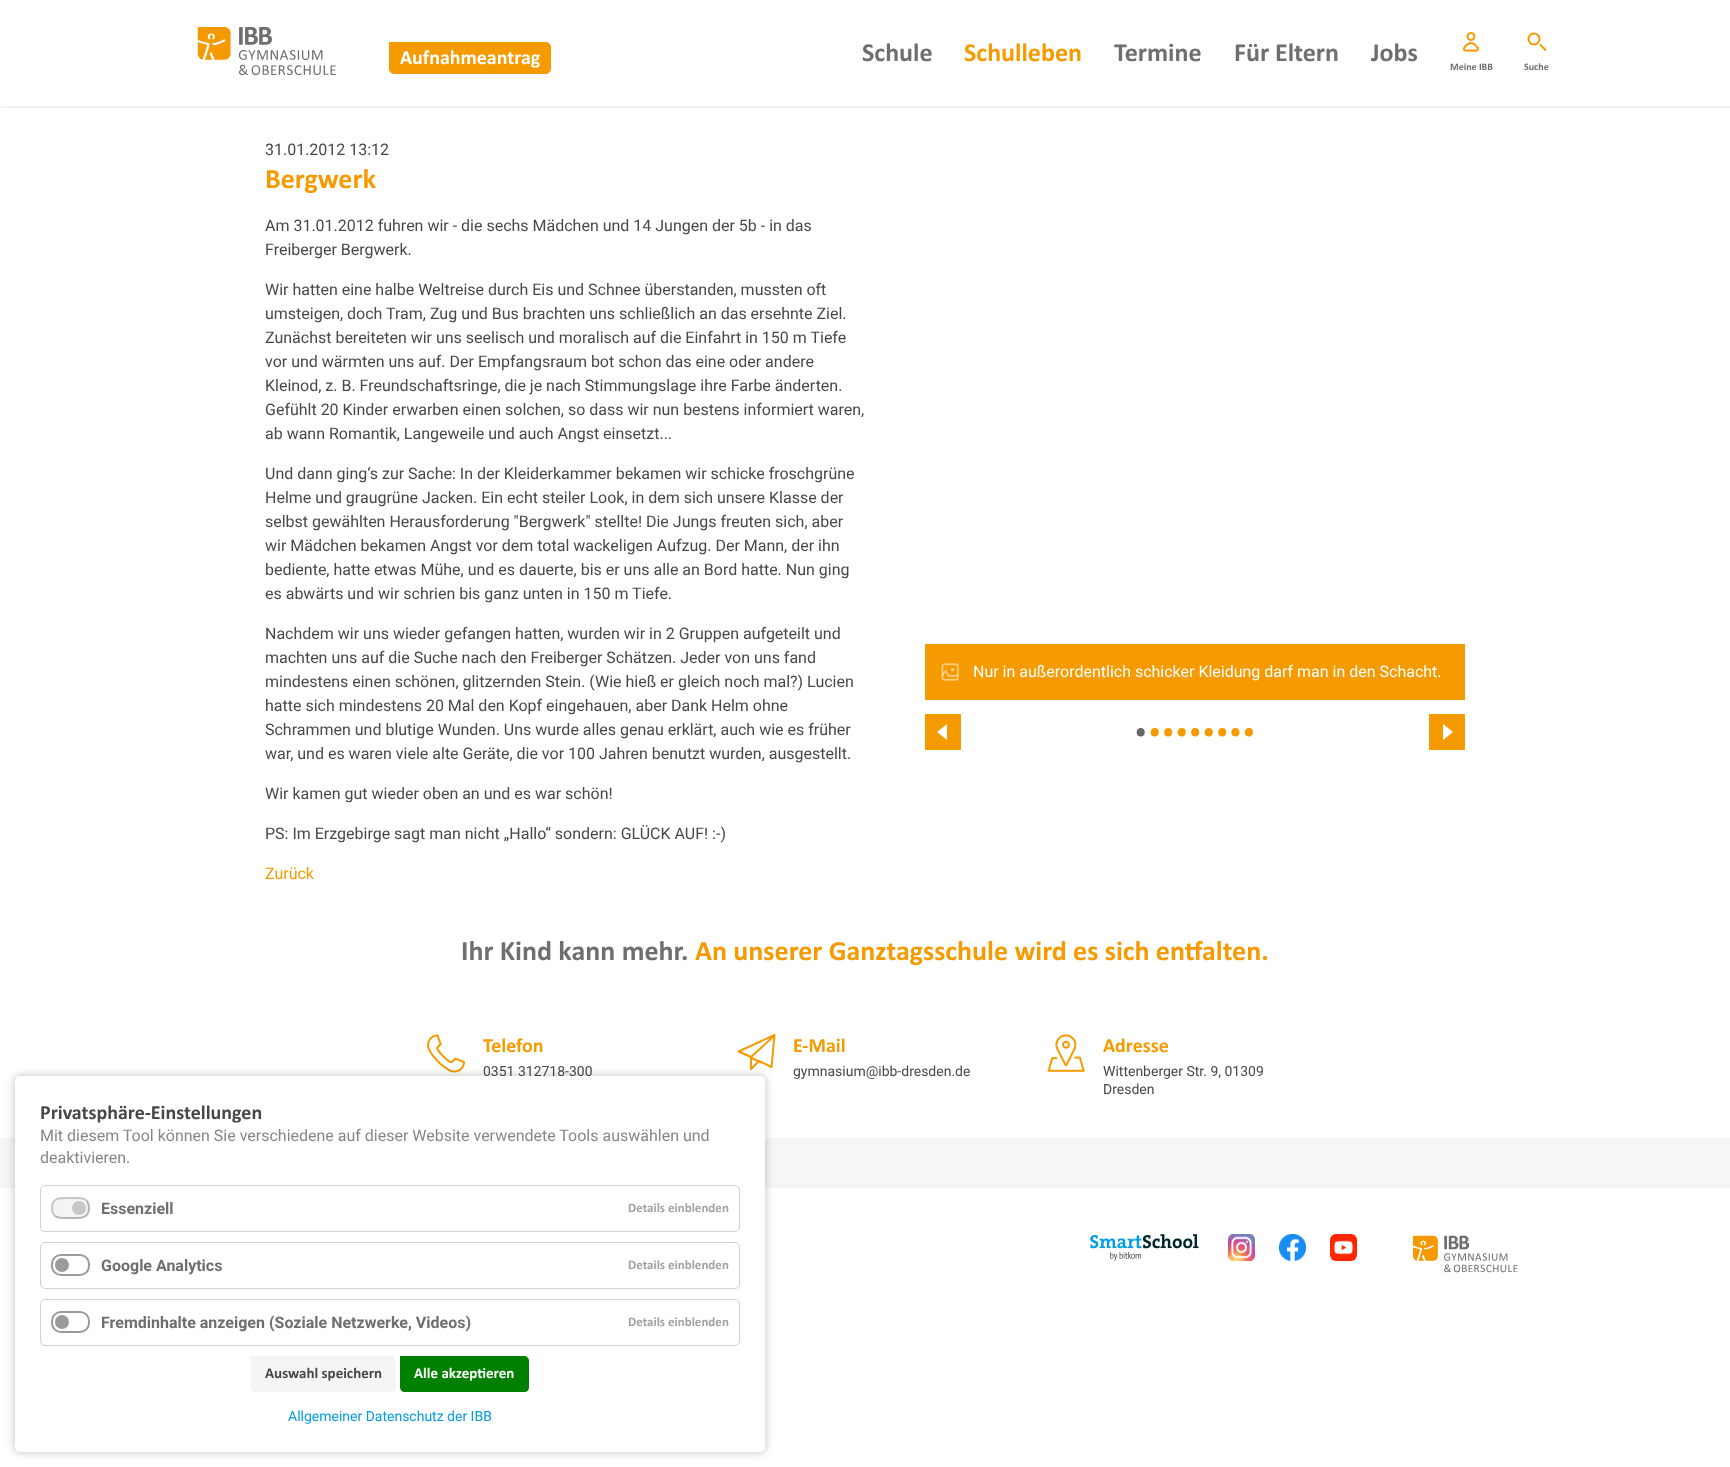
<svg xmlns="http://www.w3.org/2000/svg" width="1730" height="1467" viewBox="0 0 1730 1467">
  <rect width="100%" height="100%" fill="rgb(255,255,255)"/>
  <rect x="1" y="2" width="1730" height="106" fill="rgba(0,0,0,0.05)" filter="blur(0.5px)"/>
  <rect x="1" y="2" width="1729" height="104" fill="rgb(255,255,255)"/>
  <image x="197" y="27" width="139" height="48" href="pic1.png"/>
  <path d="M389.5 42.5H546C548.5 42.5 550.5 44.5 550.5 47V69C550.5 71.5 548.5 73.5 546 73.5H394C391.5 73.5 389.5 71.5 389.5 69Z" fill="rgb(245,154,0)" stroke="rgb(245,154,0)"/>
  <text x="400" y="64" font-family="Calibri" font-size="20" fill="rgb(255,255,255)">Aufnahmeantrag</text>
  <text x="862" y="61" font-family="Calibri" font-size="26" fill="rgb(112,111,111)">Schule</text>
  <text x="964" y="61" font-family="Calibri" font-size="26" fill="rgb(245,154,0)">Schulleben</text>
  <g font-family="Calibri" font-size="26" fill="rgb(112,111,111)">
    <text x="1114" y="61">Termine</text>
    <text x="1234" y="61">Für Eltern</text>
    <text x="1371" y="61">Jobs</text>
  </g>
  <image x="1463" y="32" width="16" height="20" href="pic2.png"/>
  <text x="1450" y="70" font-family="Calibri" font-size="10" fill="rgb(112,111,111)">Meine IBB</text>
  <circle cx="1534" cy="39" r="5.5" fill="none" stroke="rgb(245,154,0)" stroke-width="2"/>
  <path d="M1540.5 45L1545.5 50" fill="none" stroke="rgb(245,154,0)" stroke-width="2" stroke-linecap="round"/>
  <text x="1524" y="70" font-family="Calibri" font-size="10" fill="rgb(112,111,111)">Suche</text>
  <text x="265" y="155" font-family="Roboto" font-size="16" fill="rgb(72,72,72)">31.01.2012 13:12</text>
  <text x="265" y="188" font-family="Calibri" font-size="28" fill="rgb(245,154,0)">Bergwerk</text>
  <g font-family="Roboto" font-size="16" fill="rgb(72,72,72)">
    <text>
      <tspan x="265" y="231">Am 31.01.2012 fuhren wir - die sechs Mädchen und 14 Jungen der 5b - in das</tspan>
      <tspan x="265" y="255">Freiberger Bergwerk.</tspan>
    </text>
    <text>
      <tspan x="265" y="295">Wir hatten eine halbe Weltreise durch Eis und Schnee überstanden, mussten oft</tspan>
      <tspan x="265" y="319">umsteigen, doch Tram, Zug und Bus brachten uns schließlich an das ersehnte Ziel.</tspan>
      <tspan x="265" y="343">Zunächst bereiteten wir uns seelisch und moralisch auf die Einfahrt in 150 m Tiefe</tspan>
      <tspan x="265" y="367">vor und wärmten uns auf. Der Empfangsraum bot schon das eine oder andere</tspan>
      <tspan x="265" y="391">Kleinod, z. B. Freundschaftsringe, die je nach Stimmungslage ihre Farbe änderten.</tspan>
      <tspan x="265" y="415">Gefühlt 20 Kinder erwarben einen solchen, so dass wir nun bestens informiert waren,</tspan>
      <tspan x="265" y="439">ab wann Romantik, Langeweile und auch Angst einsetzt...</tspan>
    </text>
    <text>
      <tspan x="265" y="479">Und dann ging‘s zur Sache: In der Kleiderkammer bekamen wir schicke froschgrüne</tspan>
      <tspan x="265" y="503">Helme und graugrüne Jacken. Ein echt steiler Look, in dem sich unsere Klasse der</tspan>
      <tspan x="265" y="527">selbst gewählten Herausforderung "Bergwerk" stellte! Die Jungs freuten sich, aber</tspan>
      <tspan x="265" y="551">wir Mädchen bekamen Angst vor dem total wackeligen Aufzug. Der Mann, der ihn</tspan>
      <tspan x="265" y="575">bediente, hatte etwas Mühe, und es dauerte, bis er uns alle an Bord hatte. Nun ging</tspan>
      <tspan x="265" y="599">es abwärts und wir schrien bis ganz unten in 150 m Tiefe.</tspan>
    </text>
    <text>
      <tspan x="265" y="639">Nachdem wir uns wieder gefangen hatten, wurden wir in 2 Gruppen aufgeteilt und</tspan>
      <tspan x="265" y="663">machten uns auf die Suche nach den Freiberger Schätzen. Jeder von uns fand</tspan>
      <tspan x="265" y="687">mindestens einen schönen, glitzernden Stein. (Wie hieß er gleich noch mal?) Lucien</tspan>
      <tspan x="265" y="711">hatte sich mindestens 20 Mal den Kopf eingehauen, aber Dank Helm ohne</tspan>
      <tspan x="265" y="735">Schrammen und blutige Wunden. Uns wurde alles genau erklärt, auch wie es früher</tspan>
      <tspan x="265" y="759">war, und es waren viele alte Geräte, die vor 100 Jahren benutzt wurden, ausgestellt.</tspan>
    </text>
    <text x="265" y="799">Wir kamen gut wieder oben an und es war schön!</text>
    <text x="265" y="839">PS: Im Erzgebirge sagt man nicht „Hallo“ sondern: GLÜCK AUF! :-)</text>
  </g>
  <rect x="925" y="644" width="540" height="56" fill="rgb(245,154,0)"/>
  <image x="941" y="663" width="18" height="18" href="pic3.png"/>
  <text x="973" y="677" font-family="Roboto" font-size="16" fill="rgb(255,255,255)">Nur in außerordentlich schicker Kleidung darf man in den Schacht.</text>
  <rect x="925" y="714" width="36" height="36" fill="rgb(245,154,0)"/>
  <path d="M947 740L937 732L947 724" fill="rgb(255,255,255)"/>
  <text x="1134" y="747" font-family="Roboto" font-size="40" fill="rgb(102,102,102)">•</text>
  <text x="1148" y="747" font-family="Roboto" font-size="40" fill="rgb(245,154,0)">••••••••</text>
  <rect x="1429" y="714" width="36" height="36" fill="rgb(245,154,0)"/>
  <path d="M1443 724L1453 732L1443 740" fill="rgb(255,255,255)"/>
  <text x="265" y="879" font-family="Roboto" font-size="16" fill="rgb(245,154,0)">Zurück</text>
  <text x="461" y="960" font-family="Calibri" font-size="28" fill="rgb(112,111,111)">Ihr Kind kann mehr.</text>
  <text x="695" y="960" font-family="Calibri" font-size="28" fill="rgb(245,154,0)">An unserer Ganztagsschule wird es sich entfalten.</text>
  <image x="427" y="1034" width="38" height="39" href="pic4.png"/>
  <text x="483" y="1052" font-family="Calibri" font-size="20" fill="rgb(245,154,0)">Telefon</text>
  <text x="483" y="1076" font-family="Roboto" font-size="14" fill="rgb(72,72,72)">0351 312718-300</text>
  <path d="M774.5 1035L738.5 1051.5L751 1057V1069L759 1061L771.5 1067ZM761.5 1062.5L750.5 1057.5L773.5 1036.5" fill="none" stroke="rgb(245,154,0)" stroke-width="2" stroke-linecap="square" stroke-linejoin="round"/>
  <text x="793" y="1052" font-family="Calibri" font-size="20" fill="rgb(245,154,0)">E-Mail</text>
  <text x="793" y="1076" font-family="Roboto" font-size="14" fill="rgb(72,72,72)">gymnasium@ibb-dresden.de</text>
  <image x="1047" y="1034" width="38" height="38" href="pic5.png"/>
  <text x="1103" y="1052" font-family="Calibri" font-size="20" fill="rgb(245,154,0)">Adresse</text>
  <g font-family="Roboto" font-size="14" fill="rgb(72,72,72)">
    <text>
      <tspan x="1103" y="1076">Wittenberger Str. 9, 01309</tspan>
      <tspan x="1103" y="1094">Dresden</tspan>
    </text>
  </g>
  <rect x="0" y="1138" width="1730" height="50" fill="rgb(246,246,246)"/>
  <image x="1090" y="1234" width="109" height="27" href="pic6.png"/>
  <image x="1228" y="1234" width="27" height="27" href="pic7.png"/>
  <image x="1279" y="1234" width="27" height="27" href="pic8.png"/>
  <image x="1330" y="1234" width="27" height="27" href="pic9.png"/>
  <image x="1413" y="1235" width="105" height="38" href="pic10.png"/>
  <rect x="15" y="1076" width="750" height="376" rx="5" fill="rgba(0,0,0,0.25)" filter="blur(5px)"/>
  <rect x="15" y="1076" width="750" height="376" rx="5" fill="rgb(255,255,255)"/>
  <text x="40" y="1119" font-family="Calibri" font-size="20" fill="rgb(72,72,72)">Privatsphäre-Einstellungen</text>
  <g font-family="Roboto" font-size="16" fill="rgb(134,134,134)">
    <text>
      <tspan x="40" y="1141">Mit diesem Tool können Sie verschiedene auf dieser Website verwendete Tools auswählen und</tspan>
      <tspan x="40" y="1163">deaktivieren.</tspan>
    </text>
  </g>
  <rect x="40.5" y="1185.5" width="699" height="46" rx="4.5" fill="none" stroke="rgb(208,208,208)"/>
  <rect x="51" y="1197" width="39" height="22" rx="10" fill="rgb(244,244,244)"/>
  <path d="M86.5 1200.5C88.5 1202.5 89 1205 89 1208C89 1219.5 79 1218 70.5 1218H64C60.5 1218 57.5 1218 54.5 1215.5" fill="none" stroke="rgba(0,0,0,0.26)" stroke-width="2"/>
  <path d="M54.5 1215.5C52.5 1213.5 52 1211 52 1208C52 1196.5 62 1198 70.5 1198H77C80.5 1198 83.5 1198 86.5 1200.5" fill="none" stroke="rgb(200,199,197)" stroke-width="2"/>
  <circle cx="79" cy="1208" r="7" fill="rgb(200,199,197)"/>
  <text x="101" y="1214" font-family="Roboto" font-size="16" font-weight="bold" fill="rgb(112,111,111)">Essenziell</text>
  <text x="628" y="1212" font-family="Calibri" font-size="13" fill="rgb(162,162,162)">Details einblenden</text>
  <rect x="40.5" y="1242.5" width="699" height="46" rx="4.5" fill="none" stroke="rgb(208,208,208)"/>
  <rect x="52" y="1255" width="37" height="20" rx="9" fill="none" stroke="rgb(156,155,153)" stroke-width="2"/>
  <circle cx="62" cy="1265" r="7" fill="rgb(156,155,153)"/>
  <text x="101" y="1271" font-family="Roboto" font-size="16" font-weight="bold" fill="rgb(112,111,111)">Google Analytics</text>
  <text x="628" y="1269" font-family="Calibri" font-size="13" fill="rgb(162,162,162)">Details einblenden</text>
  <rect x="40.5" y="1299.5" width="699" height="46" rx="4.5" fill="none" stroke="rgb(208,208,208)"/>
  <rect x="52" y="1312" width="37" height="20" rx="9" fill="none" stroke="rgb(156,155,153)" stroke-width="2"/>
  <circle cx="62" cy="1322" r="7" fill="rgb(156,155,153)"/>
  <text x="101" y="1328" font-family="Roboto" font-size="16" font-weight="bold" fill="rgb(112,111,111)">Fremdinhalte anzeigen (Soziale Netzwerke, Videos)</text>
  <text x="628" y="1326" font-family="Calibri" font-size="13" fill="rgb(162,162,162)">Details einblenden</text>
  <path d="M251 1356H391C394 1356 396 1358 396 1361V1387C396 1390 394 1392 391 1392H256C253 1392 251 1390 251 1387Z" fill="rgb(245,245,245)"/>
  <text x="265" y="1378" font-family="Calibri" font-size="15" fill="rgb(72,72,72)">Auswahl speichern</text>
  <path d="M400 1356H524C527 1356 529 1358 529 1361V1387C529 1390 527 1392 524 1392H405C402 1392 400 1390 400 1387Z" fill="rgb(0,128,0)"/>
  <text x="414" y="1378" font-family="Calibri" font-size="15" fill="rgb(255,255,255)">Alle akzeptieren</text>
  <text x="288" y="1421" font-family="Roboto" font-size="14" fill="rgb(3,155,229)">Allgemeiner Datenschutz der IBB</text>
</svg>
